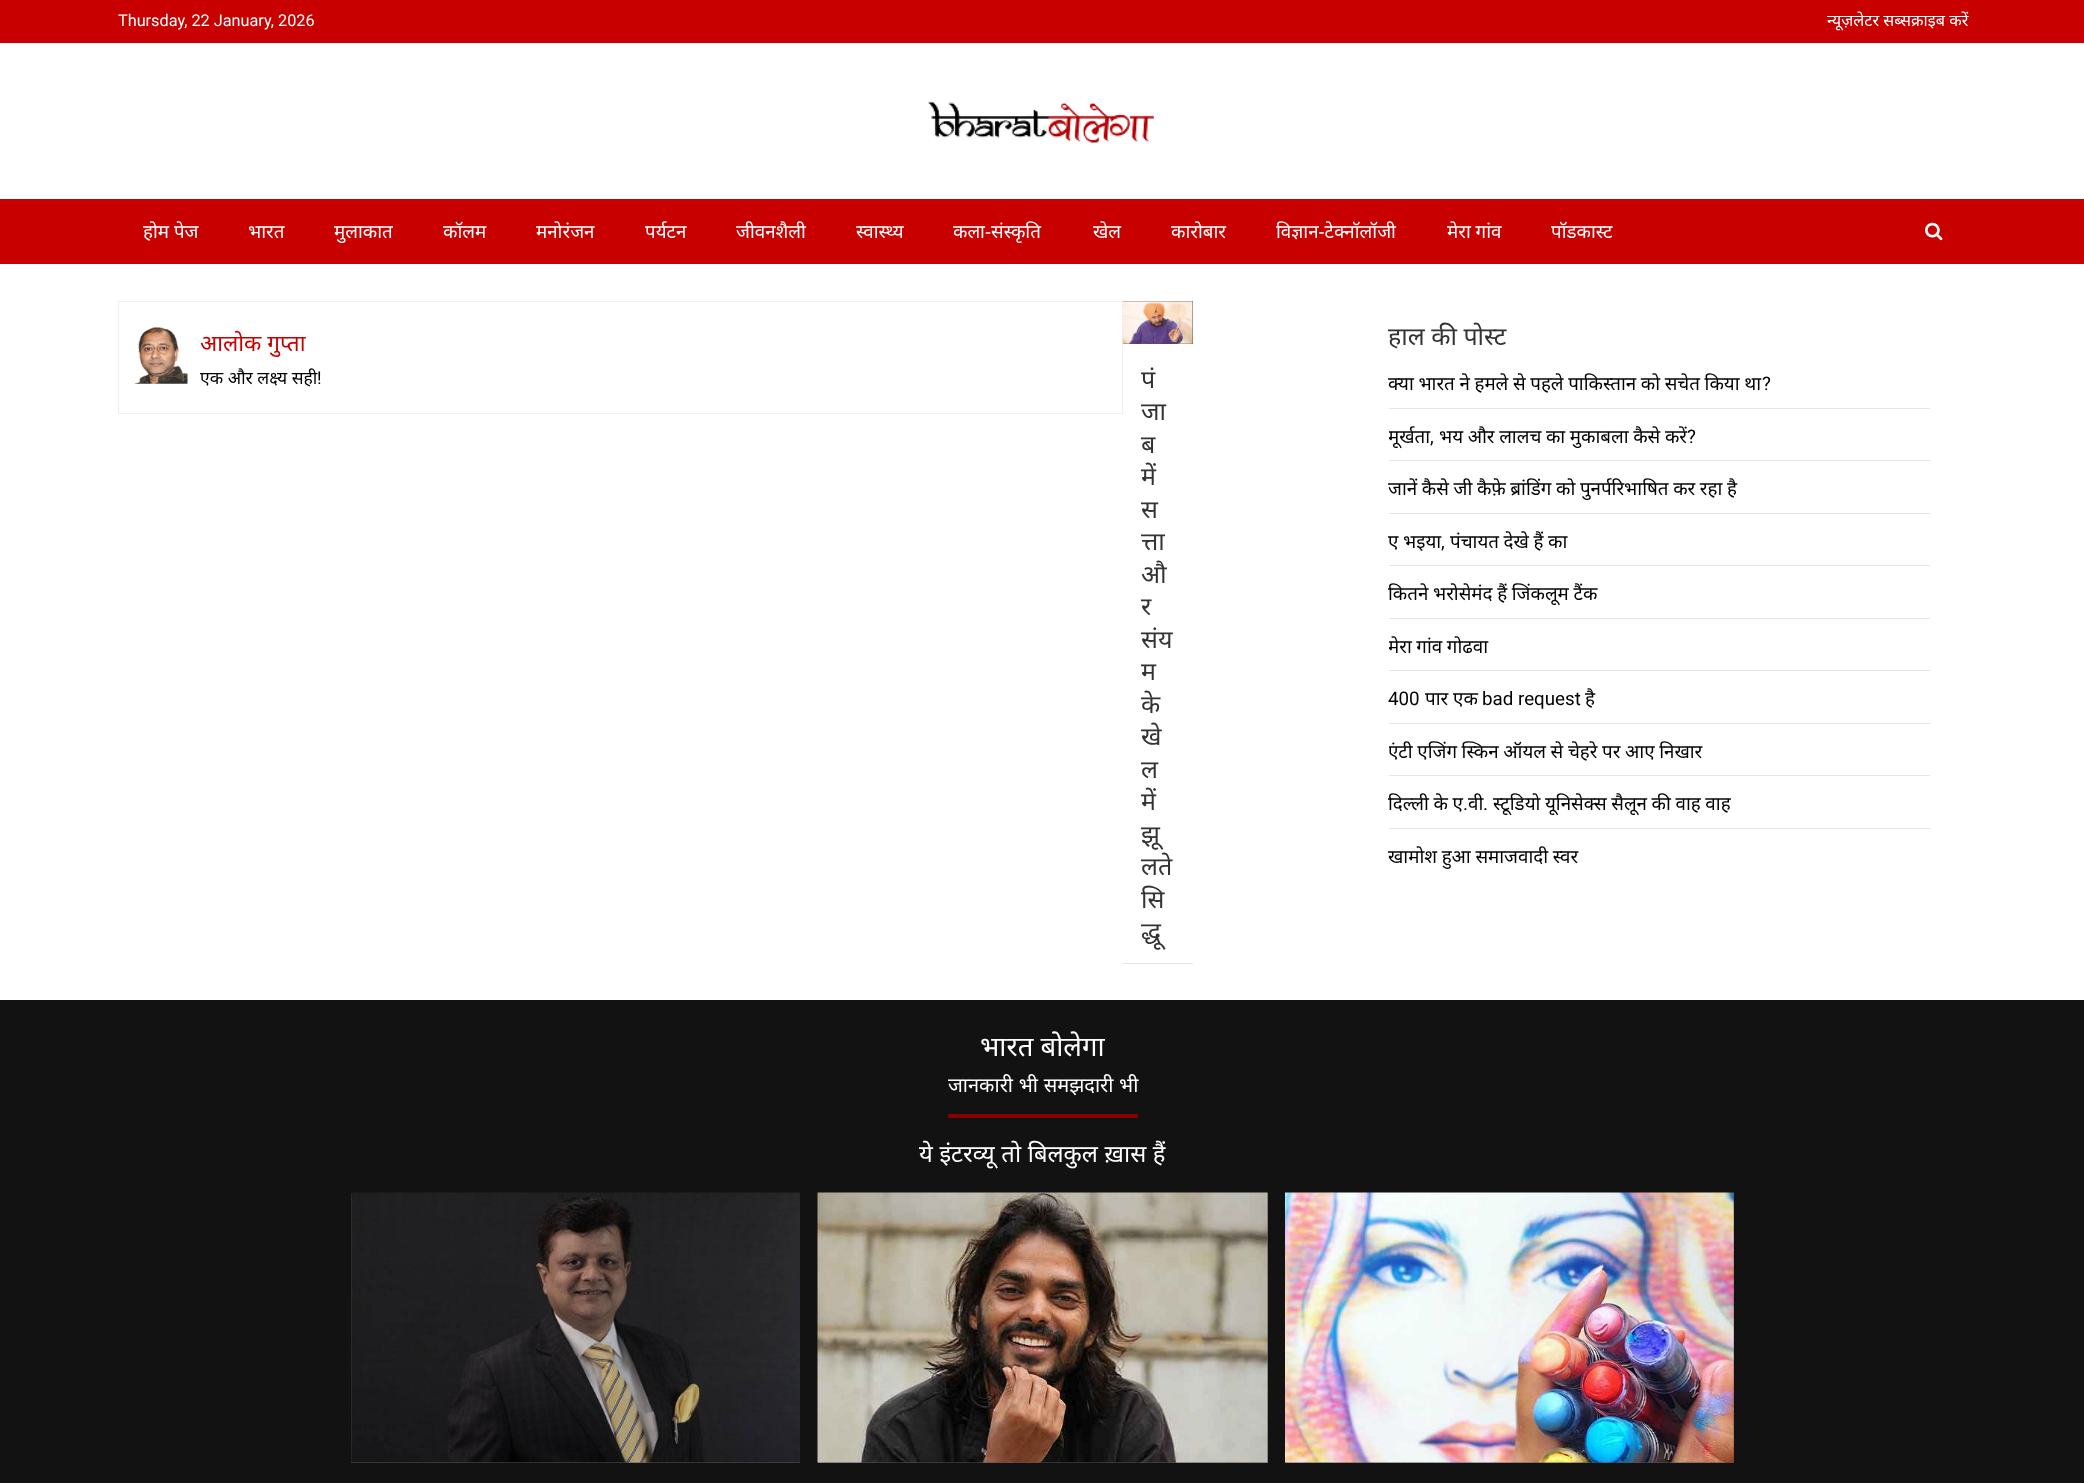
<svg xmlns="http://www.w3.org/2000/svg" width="2084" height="1483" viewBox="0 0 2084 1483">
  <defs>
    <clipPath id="clip1"><rect x="1389" y="371" width="541" height="499"/></clipPath>
  </defs>
  <rect width="100%" height="100%" fill="rgb(255,255,255)"/>
  <rect x="0" y="0" width="2084" height="43" fill="rgb(200,0,0)"/>
  <text x="118" y="26" font-family="Roboto" font-size="16.25" fill="rgb(255,255,255)">Thursday, 22 January, 2026</text>
  <text x="1827" y="26" font-family="Noto Sans" font-size="16.25" fill="rgb(255,255,255)">न्यूज़लेटर सब्सक्राइब करें</text>
  <image x="928" y="101" width="226" height="42" href="pic1.png"/>
  <rect x="0" y="199" width="2084" height="65" fill="rgb(200,0,0)"/>
  <g font-family="Noto Sans" font-size="18.75" fill="rgb(255,255,255)">
    <text x="143" y="238">होम पेज</text>
    <text x="248" y="238">भारत</text>
    <text x="334" y="238">मुलाकात</text>
    <text x="443" y="238">कॉलम</text>
    <text x="536" y="238">मनोरंजन</text>
    <text x="645" y="238">पर्यटन</text>
    <text x="736" y="238">जीवनशैली</text>
    <text x="856" y="238">स्वास्थ्य</text>
    <text x="953" y="238">कला-संस्कृति</text>
    <text x="1093" y="238">खेल</text>
    <text x="1171" y="238">कारोबार</text>
    <text x="1276" y="238">विज्ञान-टेक्नॉलॉजी</text>
    <text x="1447" y="238">मेरा गांव</text>
    <text x="1551" y="238">पॉडकास्ट</text>
  </g>
  <image x="1925" y="222" width="18" height="19" href="pic2.png"/>
  <rect x="118.5" y="301.5" width="1004" height="112" fill="none" stroke="rgb(238,238,238)"/>
  <image x="134" y="327" width="54" height="57" href="pic3.png"/>
  <text x="200" y="351" font-family="Noto Sans" font-size="22.5" fill="rgb(200,0,0)">आलोक गुप्ता</text>
  <text x="200" y="384" font-family="Noto Sans" font-size="17.5" fill="rgb(0,0,0)">एक और लक्ष्य सही</text>
  <text x="317" y="384" font-family="Roboto" font-size="17.5" fill="rgb(0,0,0)">!</text>
  <text x="1388" y="345" font-family="Noto Sans" font-size="25" fill="rgb(51,51,51)">हाल की पोस्ट</text>
  <rect x="1389" y="408" width="541" height="1" fill="rgb(230,230,230)"/>
  <text x="1388" y="390" word-spacing="-0.25" font-family="Noto Sans" font-size="18.75" fill="rgb(0,0,0)">क्या भारत ने हमले से पहले पाकिस्तान को सचेत किया था</text>
  <text x="1762" y="390" font-family="Roboto" font-size="18.75" fill="rgb(0,0,0)">?</text>
  <rect x="1389" y="460" width="541" height="1" fill="rgb(230,230,230)"/>
  <g clip-path="url(#clip1)">
    <text x="1388" y="443" font-family="Noto Sans" font-size="18.75" fill="rgb(0,0,0)">मूर्खता</text>
  </g>
  <text x="1430" y="443" font-family="Roboto" font-size="18.75" fill="rgb(0,0,0)">,</text>
  <text x="1439" y="443" word-spacing="-0.25" font-family="Noto Sans" font-size="18.75" fill="rgb(0,0,0)">भय और लालच का मुकाबला कैसे करें</text>
  <text x="1687" y="443" font-family="Roboto" font-size="18.75" fill="rgb(0,0,0)">?</text>
  <rect x="1389" y="513" width="541" height="1" fill="rgb(230,230,230)"/>
  <text x="1388" y="495" word-spacing="-0.25" font-family="Noto Sans" font-size="18.75" fill="rgb(0,0,0)">जानें कैसे जी कैफ़े ब्रांडिंग को पुनर्परिभाषित कर रहा है</text>
  <rect x="1389" y="565" width="541" height="1" fill="rgb(230,230,230)"/>
  <text x="1388" y="548" word-spacing="-0.25" font-family="Noto Sans" font-size="18.75" fill="rgb(0,0,0)">ए भइया</text>
  <text x="1441" y="548" font-family="Roboto" font-size="18.75" fill="rgb(0,0,0)">,</text>
  <text x="1450" y="548" word-spacing="-0.25" font-family="Noto Sans" font-size="18.75" fill="rgb(0,0,0)">पंचायत देखे हैं का</text>
  <rect x="1389" y="618" width="541" height="1" fill="rgb(230,230,230)"/>
  <text x="1388" y="600" word-spacing="-0.25" font-family="Noto Sans" font-size="18.75" fill="rgb(0,0,0)">कितने भरोसेमंद हैं जिंकलूम टैंक</text>
  <rect x="1389" y="670" width="541" height="1" fill="rgb(230,230,230)"/>
  <g clip-path="url(#clip1)">
    <text x="1388" y="653" word-spacing="-0.25" font-family="Noto Sans" font-size="18.75" fill="rgb(0,0,0)">मेरा गांव गोढवा</text>
  </g>
  <rect x="1389" y="723" width="541" height="1" fill="rgb(230,230,230)"/>
  <text x="1388" y="705" font-family="Roboto" font-size="18.75" fill="rgb(0,0,0)">400</text>
  <text x="1425" y="705" font-family="Noto Sans" font-size="18.75" fill="rgb(0,0,0)">पार एक</text>
  <text x="1482" y="705" font-family="Roboto" font-size="18.75" fill="rgb(0,0,0)">bad request</text>
  <text x="1585" y="705" font-family="Noto Sans" font-size="18.75" fill="rgb(0,0,0)">है</text>
  <rect x="1389" y="775" width="541" height="1" fill="rgb(230,230,230)"/>
  <g clip-path="url(#clip1)">
    <text x="1388" y="758" word-spacing="-0.25" font-family="Noto Sans" font-size="18.75" fill="rgb(0,0,0)">एंटी एजिंग स्किन ऑयल से चेहरे पर आए निखार</text>
  </g>
  <rect x="1389" y="828" width="541" height="1" fill="rgb(230,230,230)"/>
  <text x="1388" y="810" word-spacing="-0.25" font-family="Noto Sans" font-size="18.75" fill="rgb(0,0,0)">दिल्ली के ए</text>
  <text x="1463" y="810" font-family="Roboto" font-size="18.75" fill="rgb(0,0,0)">.</text>
  <g font-family="Noto Sans" font-size="18.75" fill="rgb(0,0,0)">
    <text x="1468" y="810">वी</text>
    <text x="1493" y="810" word-spacing="-0.25">स्टूडियो यूनिसेक्स सैलून की वाह वाह</text>
  </g>
  <text x="1483" y="810" font-family="Roboto" font-size="18.75" fill="rgb(0,0,0)">.</text>
  <text x="1388" y="863" word-spacing="-0.25" font-family="Noto Sans" font-size="18.75" fill="rgb(0,0,0)">खामोश हुआ समाजवादी स्वर</text>
  <rect x="1123" y="303" width="70" height="661" fill="rgba(0,0,0,0.1)" filter="blur(0.5px)"/>
  <rect x="1123" y="344" width="70" height="619" fill="rgb(255,255,255)"/>
  <rect x="1123" y="301" width="70" height="43" fill="rgb(85,85,85)"/>
  <image x="1122" y="301" width="71" height="43" href="pic4.png"/>
  <g font-family="Noto Sans" font-size="25" fill="rgb(51,51,51)">
    <text>
      <tspan x="1141" y="388">पं</tspan>
      <tspan x="1141" y="420">जा</tspan>
      <tspan x="1141" y="453">ब</tspan>
      <tspan x="1141" y="485">में</tspan>
      <tspan x="1141" y="518">स</tspan>
      <tspan x="1141" y="550">त्ता</tspan>
      <tspan x="1141" y="583">औ</tspan>
      <tspan x="1141" y="615">र</tspan>
      <tspan x="1141" y="648">संय</tspan>
      <tspan x="1141" y="680">म</tspan>
      <tspan x="1141" y="713">के</tspan>
      <tspan x="1141" y="745">खे</tspan>
      <tspan x="1141" y="778">ल</tspan>
      <tspan x="1141" y="810">में</tspan>
      <tspan x="1141" y="843">झू</tspan>
      <tspan x="1141" y="875">लते</tspan>
      <tspan x="1141" y="908">सि</tspan>
      <tspan x="1141" y="940">द्धू</tspan>
    </text>
  </g>
  <rect x="0" y="1000" width="2084" height="483" fill="rgb(18,18,18)"/>
  <text x="980" y="1056" font-family="Noto Sans" font-size="27.5" fill="rgb(255,255,255)">भारत बोलेगा</text>
  <rect x="948" y="1114" width="190" height="4" fill="rgb(133,0,0)"/>
  <text x="948" y="1092" word-spacing="0.5" font-family="Noto Sans" font-size="20" fill="rgb(255,255,255)">जानकारी भी समझदारी भी</text>
  <text x="919" y="1162" word-spacing="0.5" font-family="Noto Sans" font-size="23.75" fill="rgb(255,255,255)">ये इंटरव्यू तो बिलकुल ख़ास हैं</text>
  <rect x="351" y="1193" width="449" height="270" fill="rgb(85,85,85)"/>
  <image x="351" y="1192" width="449" height="271" href="pic5.png"/>
  <rect x="818" y="1193" width="450" height="270" fill="rgb(85,85,85)"/>
  <image x="817" y="1192" width="451" height="271" href="pic6.png"/>
  <rect x="1285" y="1193" width="449" height="270" fill="rgb(85,85,85)"/>
  <image x="1285" y="1192" width="449" height="271" href="pic7.png"/>
</svg>
